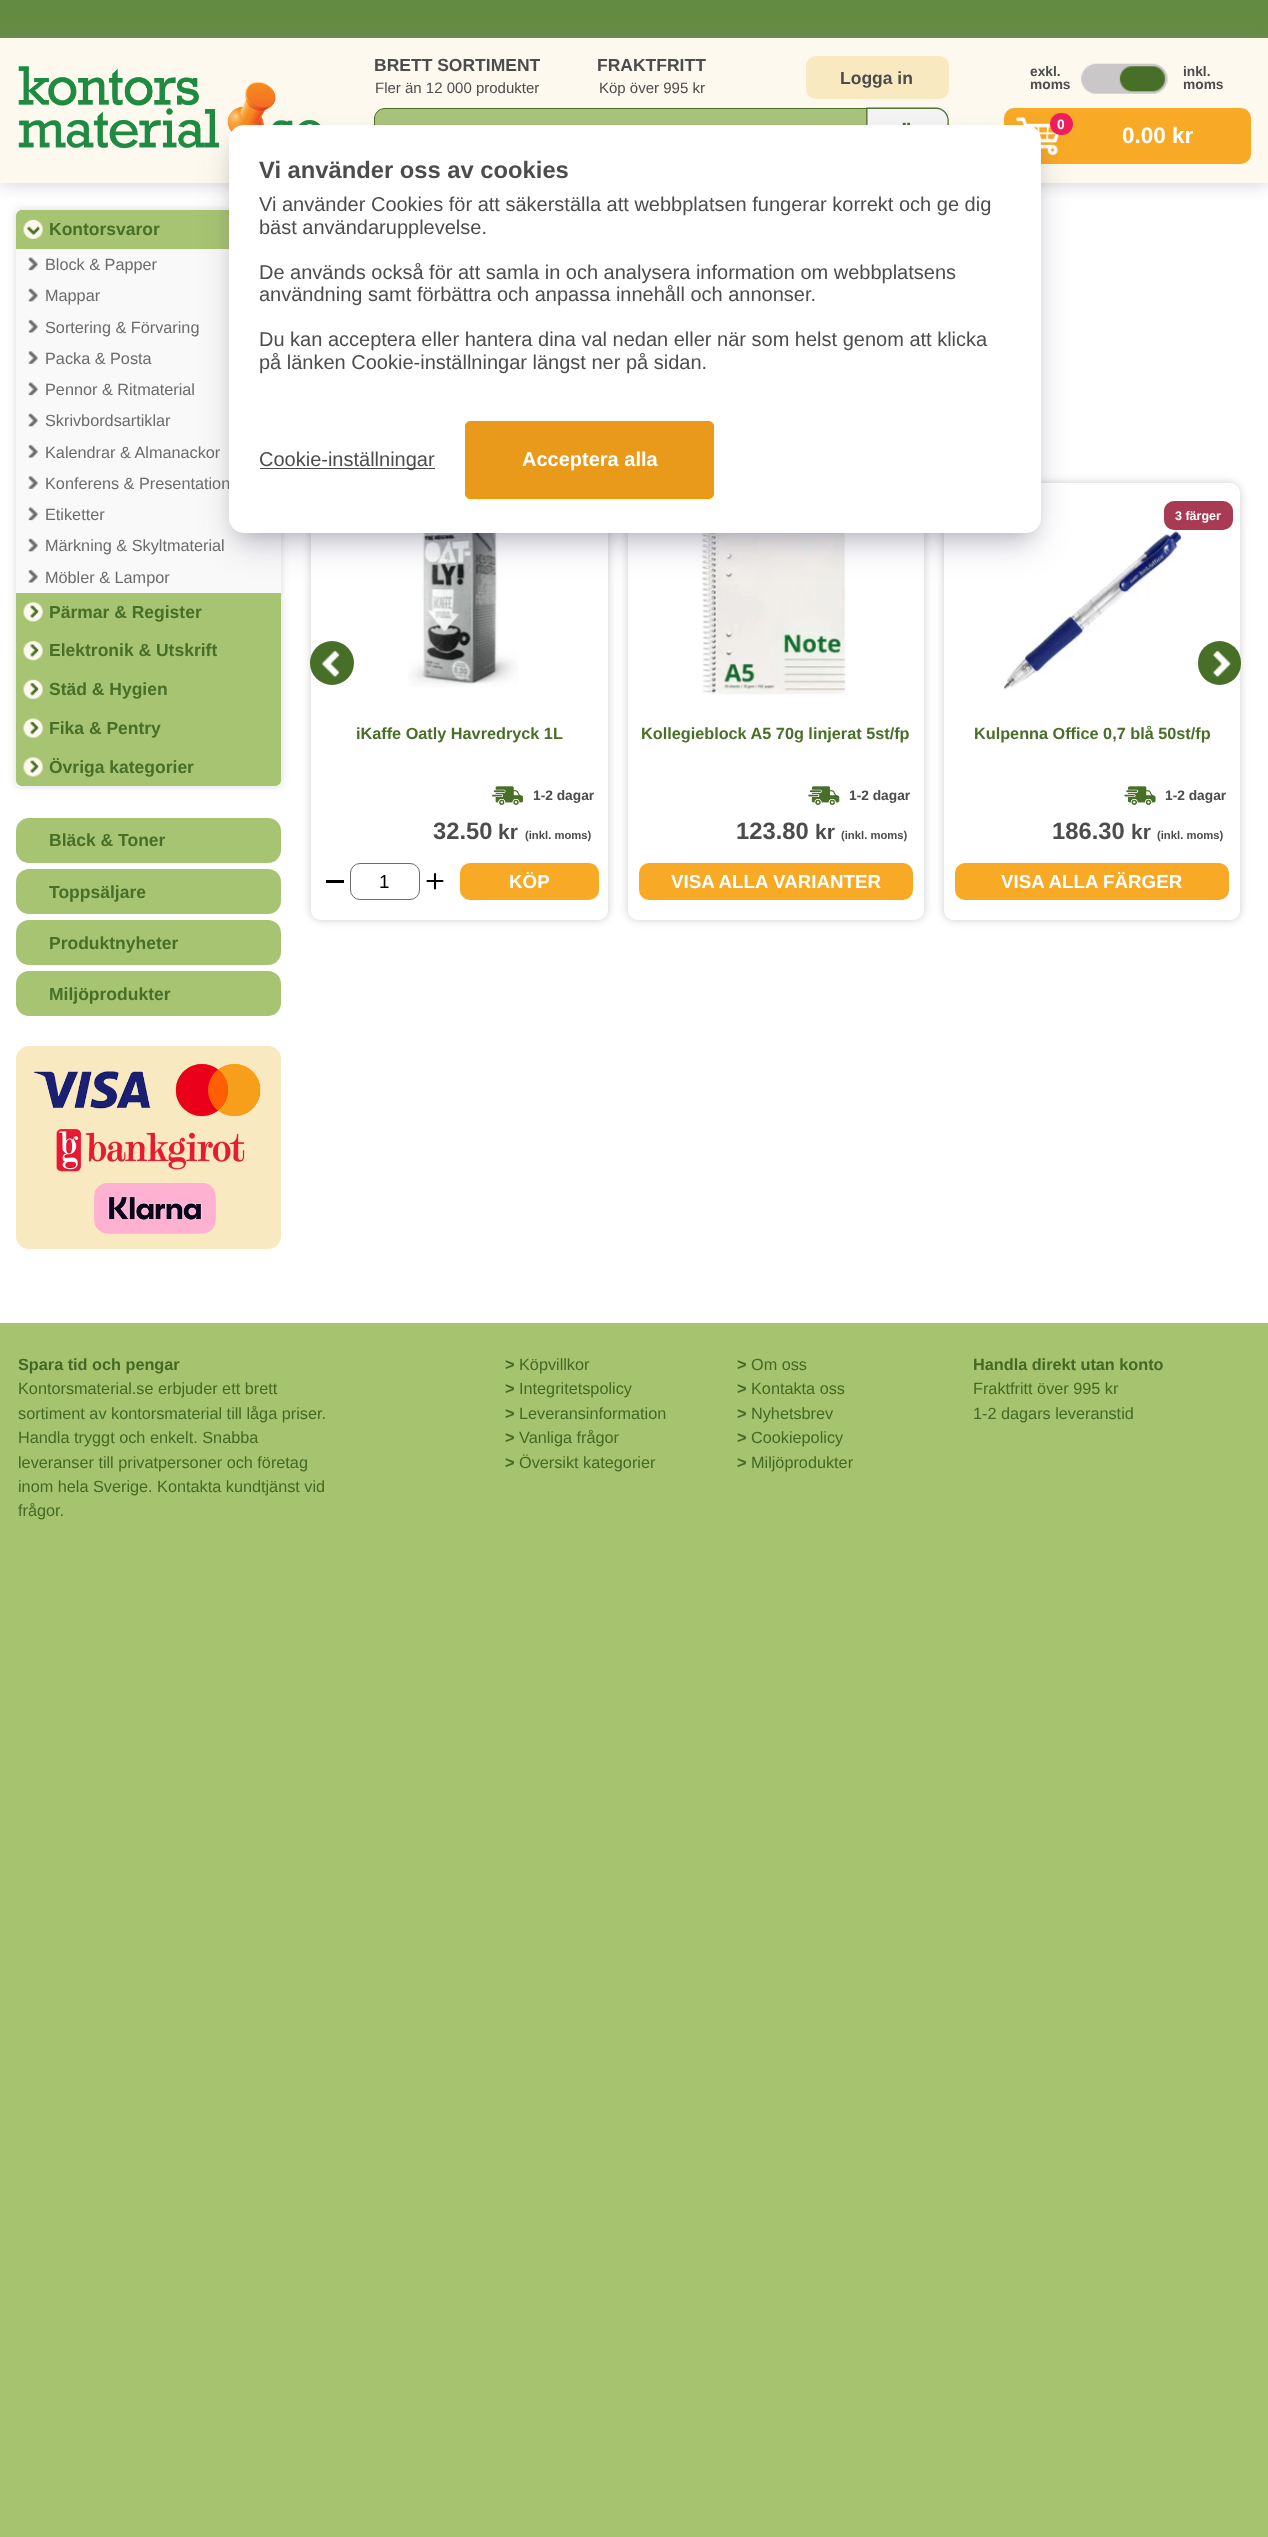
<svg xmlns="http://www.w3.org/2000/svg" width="1268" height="2537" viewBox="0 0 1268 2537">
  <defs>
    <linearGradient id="g1" gradientUnits="userSpaceOnUse" x1="634" y1="0" x2="634" y2="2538"><stop offset="0" stop-color="rgb(99,139,65)"/><stop offset="0.51" stop-color="rgb(166,195,111)"/><stop offset="1" stop-color="rgb(166,195,111)"/></linearGradient>
    <clipPath id="clip1"><path d="M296 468H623V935H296ZM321 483H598C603.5 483 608 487.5 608 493V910C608 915.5 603.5 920 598 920H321C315.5 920 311 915.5 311 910V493C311 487.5 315.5 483 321 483Z" clip-rule="evenodd"/></clipPath>
    <clipPath id="clip2"><path d="M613 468H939V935H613ZM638 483H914C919.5 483 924 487.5 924 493V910C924 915.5 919.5 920 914 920H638C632.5 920 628 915.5 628 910V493C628 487.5 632.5 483 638 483Z" clip-rule="evenodd"/></clipPath>
    <clipPath id="clip3"><path d="M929 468H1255V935H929ZM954 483H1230C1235.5 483 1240 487.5 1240 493V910C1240 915.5 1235.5 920 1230 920H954C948.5 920 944 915.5 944 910V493C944 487.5 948.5 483 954 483Z" clip-rule="evenodd"/></clipPath>
  </defs>
  <rect width="100%" height="100%" fill="rgb(255,255,255)"/>
  <rect x="0" y="0" width="1268" height="2537" fill="url(#g1)"/>
  <rect x="0" y="183" width="1268" height="1140" fill="rgb(255,255,255)"/>
  <rect x="0" y="38" width="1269" height="145" fill="rgba(128,128,128,0.4)" filter="blur(9px)"/>
  <rect x="0" y="38" width="1268" height="145" fill="rgb(253,249,238)"/>
  <image x="18" y="66" width="303" height="86" href="pic1.png"/>
  <text x="374" y="71" font-family="Liberation Sans" font-size="17.5" font-weight="bold" fill="rgb(76,76,76)">BRETT SORTIMENT</text>
  <text x="375" y="93" font-family="Liberation Sans" font-size="15" fill="rgb(76,76,76)">Fler än 12 000 produkter</text>
  <text x="597" y="71" font-family="Liberation Sans" font-size="17.5" font-weight="bold" fill="rgb(76,76,76)">FRAKTFRITT</text>
  <text x="599" y="93" font-family="Liberation Sans" font-size="15" fill="rgb(76,76,76)">Köp över 995 kr</text>
  <rect x="806" y="56" width="143" height="43" rx="10" fill="rgb(248,233,192)"/>
  <text x="840" y="84" font-family="Liberation Sans" font-size="17.5" font-weight="bold" fill="rgb(76,76,76)">Logga in</text>
  <g font-family="Liberation Sans" font-size="13.75" font-weight="bold" fill="rgb(76,76,76)">
    <text>
      <tspan x="1030" y="76">exkl.</tspan>
      <tspan x="1030" y="89">moms</tspan>
    </text>
  </g>
  <image x="1081" y="63" width="87" height="31" href="pic2.png"/>
  <g font-family="Liberation Sans" font-size="13.75" font-weight="bold" fill="rgb(76,76,76)">
    <text>
      <tspan x="1183" y="76">inkl.</tspan>
      <tspan x="1183" y="89">moms</tspan>
    </text>
  </g>
  <path d="M385 108.5H940.5V163.5H385C379 163.5 374.5 159 374.5 153V119C374.5 113 379 108.5 385 108.5Z" fill="rgb(170,195,124)" stroke="rgb(71,111,39)"/>
  <image x="866" y="107" width="83" height="18" href="pic3.png"/>
  <rect x="1004" y="108" width="247" height="56" rx="10" fill="rgb(248,169,38)"/>
  <image x="1016" y="117" width="44" height="38" href="pic4.png"/>
  <rect x="1050" y="113" width="23" height="22" rx="11" fill="rgb(238,30,91)"/>
  <text x="1057" y="129" font-family="Liberation Sans" font-size="13.75" font-weight="bold" fill="rgb(255,255,255)">0</text>
  <text x="1122" y="143" font-family="Liberation Sans" font-size="22.5" font-weight="bold" fill="rgb(255,255,255)">0.00 kr</text>
  <rect x="16" y="210" width="265" height="576" fill="rgba(128,128,128,0.3)" filter="blur(4px)"/>
  <rect x="16" y="210" width="265" height="576" fill="rgb(249,249,249)"/>
  <path d="M22 210H275C278.5 210 281 212.5 281 216V249H16V216C16 212.5 18.5 210 22 210Z" fill="rgb(167,196,114)"/>
  <image x="23" y="219" width="20" height="20" href="pic5.png"/>
  <text x="49" y="235" font-family="Liberation Sans" font-size="17.5" font-weight="bold" fill="rgb(71,111,39)">Kontorsvaror</text>
  <image x="28" y="257" width="10" height="14" href="pic6.png"/>
  <text x="45" y="270" font-family="Liberation Sans" font-size="16.25" fill="rgb(107,107,107)">Block &amp; Papper</text>
  <image x="28" y="288" width="10" height="14" href="pic7.png"/>
  <text x="45" y="301" font-family="Liberation Sans" font-size="16.25" fill="rgb(107,107,107)">Mappar</text>
  <image x="28" y="319" width="10" height="14" href="pic8.png"/>
  <text x="45" y="333" font-family="Liberation Sans" font-size="16.25" fill="rgb(107,107,107)">Sortering &amp; Förvaring</text>
  <image x="28" y="351" width="10" height="13" href="pic9.png"/>
  <text x="45" y="364" font-family="Liberation Sans" font-size="16.25" fill="rgb(107,107,107)">Packa &amp; Posta</text>
  <image x="28" y="382" width="10" height="14" href="pic6.png"/>
  <text x="45" y="395" font-family="Liberation Sans" font-size="16.25" fill="rgb(107,107,107)">Pennor &amp; Ritmaterial</text>
  <image x="28" y="413" width="10" height="14" href="pic10.png"/>
  <text x="45" y="426" font-family="Liberation Sans" font-size="16.25" fill="rgb(107,107,107)">Skrivbordsartiklar</text>
  <image x="28" y="444" width="10" height="14" href="pic8.png"/>
  <text x="45" y="458" font-family="Liberation Sans" font-size="16.25" fill="rgb(107,107,107)">Kalendrar &amp; Almanackor</text>
  <image x="28" y="476" width="10" height="13" href="pic9.png"/>
  <text x="45" y="489" font-family="Liberation Sans" font-size="16.25" fill="rgb(107,107,107)">Konferens &amp; Presentation</text>
  <image x="28" y="507" width="10" height="14" href="pic6.png"/>
  <text x="45" y="520" font-family="Liberation Sans" font-size="16.25" fill="rgb(107,107,107)">Etiketter</text>
  <image x="28" y="538" width="10" height="14" href="pic10.png"/>
  <text x="45" y="551" font-family="Liberation Sans" font-size="16.25" fill="rgb(107,107,107)">Märkning &amp; Skyltmaterial</text>
  <image x="28" y="569" width="10" height="14" href="pic8.png"/>
  <text x="45" y="583" font-family="Liberation Sans" font-size="16.25" fill="rgb(107,107,107)">Möbler &amp; Lampor</text>
  <rect x="16" y="593" width="265" height="155" fill="rgb(167,196,114)"/>
  <image x="23" y="602" width="20" height="20" href="pic11.png"/>
  <text x="49" y="618" font-family="Liberation Sans" font-size="17.5" font-weight="bold" fill="rgb(71,111,39)">Pärmar &amp; Register</text>
  <image x="23" y="641" width="20" height="20" href="pic12.png"/>
  <text x="49" y="656" font-family="Liberation Sans" font-size="17.5" font-weight="bold" fill="rgb(71,111,39)">Elektronik &amp; Utskrift</text>
  <image x="23" y="679" width="20" height="20" href="pic13.png"/>
  <text x="49" y="695" font-family="Liberation Sans" font-size="17.5" font-weight="bold" fill="rgb(71,111,39)">Städ &amp; Hygien</text>
  <image x="23" y="718" width="20" height="20" href="pic14.png"/>
  <text x="49" y="734" font-family="Liberation Sans" font-size="17.5" font-weight="bold" fill="rgb(71,111,39)">Fika &amp; Pentry</text>
  <path d="M16 748H281V780C281 783.5 278.5 786 275 786H22C18.5 786 16 783.5 16 780Z" fill="rgb(167,196,114)"/>
  <image x="23" y="757" width="20" height="20" href="pic11.png"/>
  <text x="49" y="773" font-family="Liberation Sans" font-size="17.5" font-weight="bold" fill="rgb(71,111,39)">Övriga kategorier</text>
  <rect x="16" y="818" width="265" height="45" rx="13" fill="rgb(167,196,114)"/>
  <text x="49" y="846" font-family="Liberation Sans" font-size="17.5" font-weight="bold" fill="rgb(71,111,39)">Bläck &amp; Toner</text>
  <rect x="16" y="869" width="265" height="45" rx="13" fill="rgb(167,196,114)"/>
  <text x="49" y="898" font-family="Liberation Sans" font-size="17.5" font-weight="bold" fill="rgb(71,111,39)">Toppsäljare</text>
  <rect x="16" y="920" width="265" height="45" rx="13" fill="rgb(167,196,114)"/>
  <text x="49" y="949" font-family="Liberation Sans" font-size="17.5" font-weight="bold" fill="rgb(71,111,39)">Produktnyheter</text>
  <rect x="16" y="971" width="265" height="45" rx="13" fill="rgb(167,196,114)"/>
  <text x="49" y="1000" font-family="Liberation Sans" font-size="17.5" font-weight="bold" fill="rgb(71,111,39)">Miljöprodukter</text>
  <rect x="16" y="1046" width="265" height="203" rx="13" fill="rgb(248,233,192)"/>
  <image x="34" y="1064" width="227" height="170" href="pic15.png"/>
  <g clip-path="url(#clip1)">
    <rect x="311" y="483" width="297" height="437" rx="10" fill="rgba(128,128,128,0.4)" filter="blur(4.5px)"/>
  </g>
  <circle cx="332" cy="663" r="22" fill="rgb(71,111,39)"/>
  <image x="321" y="650" width="19" height="28" href="pic16.png"/>
  <image x="408" y="533" width="110" height="154" href="pic17.png"/>
  <text x="356" y="739" font-family="Liberation Sans" font-size="16.25" font-weight="bold" fill="rgb(71,111,39)">iKaffe Oatly Havredryck 1L</text>
  <image x="492" y="786" width="31" height="19" href="pic18.png"/>
  <text x="533" y="800" font-family="Liberation Sans" font-size="13.75" font-weight="bold" fill="rgb(76,76,76)">1-2 dagar</text>
  <text x="433" y="839" font-family="Liberation Sans" font-size="23.75" font-weight="bold" fill="rgb(76,76,76)">32.50</text>
  <text x="498" y="839" font-family="Liberation Sans" font-size="21" font-weight="bold" fill="rgb(76,76,76)">kr</text>
  <text x="525" y="839" font-family="Liberation Sans" font-size="11.25" font-weight="bold" fill="rgb(76,76,76)">(inkl. moms)</text>
  <rect x="326" y="880" width="18" height="3" fill="rgb(0,0,0)"/>
  <rect x="350.5" y="863.5" width="69" height="36" rx="9.5" fill="none" stroke="rgb(109,108,108)"/>
  <text x="379" y="888" font-family="Liberation Sans" font-size="18.75" fill="rgb(0,0,0)">1</text>
  <path d="M427.5 881H442.5M435 874V888.5" fill="none" stroke="rgb(0,0,0)" stroke-width="2.1" stroke-linecap="round" stroke-linejoin="round"/>
  <rect x="460" y="863" width="139" height="37" rx="10" fill="rgb(248,169,38)"/>
  <text x="509" y="888" font-family="Liberation Sans" font-size="18.75" font-weight="bold" fill="rgb(255,255,255)">KÖP</text>
  <g clip-path="url(#clip2)">
    <rect x="628" y="483" width="296" height="437" rx="10" fill="rgba(128,128,128,0.4)" filter="blur(4.5px)"/>
  </g>
  <image x="701" y="533" width="145" height="162" href="pic19.png"/>
  <text x="641" y="739" font-family="Liberation Sans" font-size="16.25" font-weight="bold" fill="rgb(71,111,39)">Kollegieblock A5 70g linjerat 5st/fp</text>
  <image x="808" y="786" width="32" height="19" href="pic20.png"/>
  <text x="849" y="800" font-family="Liberation Sans" font-size="13.75" font-weight="bold" fill="rgb(76,76,76)">1-2 dagar</text>
  <text x="736" y="839" font-family="Liberation Sans" font-size="23.75" font-weight="bold" fill="rgb(76,76,76)">123.80</text>
  <text x="815" y="839" font-family="Liberation Sans" font-size="21" font-weight="bold" fill="rgb(76,76,76)">kr</text>
  <text x="841" y="839" font-family="Liberation Sans" font-size="11.25" font-weight="bold" fill="rgb(76,76,76)">(inkl. moms)</text>
  <rect x="639" y="863" width="274" height="37" rx="10" fill="rgb(248,169,38)"/>
  <text x="671" y="888" font-family="Liberation Sans" font-size="18.75" font-weight="bold" fill="rgb(255,255,255)">VISA ALLA VARIANTER</text>
  <g clip-path="url(#clip3)">
    <rect x="944" y="483" width="296" height="437" rx="10" fill="rgba(128,128,128,0.4)" filter="blur(4.5px)"/>
  </g>
  <rect x="1164" y="501" width="69" height="29" rx="10" fill="rgb(169,58,84)"/>
  <text x="1175" y="520" font-family="Liberation Sans" font-size="12.5" font-weight="bold" fill="rgb(255,255,255)">3 färger</text>
  <image x="1004" y="530" width="178" height="160" href="pic21.png"/>
  <text x="974" y="739" font-family="Liberation Sans" font-size="16.25" font-weight="bold" fill="rgb(71,111,39)">Kulpenna Office 0,7 blå 50st/fp</text>
  <image x="1124" y="786" width="32" height="19" href="pic22.png"/>
  <text x="1165" y="800" font-family="Liberation Sans" font-size="13.75" font-weight="bold" fill="rgb(76,76,76)">1-2 dagar</text>
  <text x="1052" y="839" font-family="Liberation Sans" font-size="23.75" font-weight="bold" fill="rgb(76,76,76)">186.30</text>
  <text x="1131" y="839" font-family="Liberation Sans" font-size="21" font-weight="bold" fill="rgb(76,76,76)">kr</text>
  <text x="1157" y="839" font-family="Liberation Sans" font-size="11.25" font-weight="bold" fill="rgb(76,76,76)">(inkl. moms)</text>
  <rect x="955" y="863" width="274" height="37" rx="10" fill="rgb(248,169,38)"/>
  <text x="1001" y="888" font-family="Liberation Sans" font-size="18.75" font-weight="bold" fill="rgb(255,255,255)">VISA ALLA FÄRGER</text>
  <rect x="1198" y="641" width="43" height="44" rx="21.5" fill="rgb(71,111,39)"/>
  <image x="1212" y="650" width="19" height="28" href="pic23.png"/>
  <text x="18" y="1370" font-family="Liberation Sans" font-size="16.25" font-weight="bold" fill="rgb(67,105,36)">Spara tid och pengar</text>
  <g font-family="Liberation Sans" font-size="16.25" fill="rgb(67,105,36)">
    <text>
      <tspan x="18" y="1394">Kontorsmaterial.se erbjuder ett brett</tspan>
      <tspan x="18" y="1419">sortiment av kontorsmaterial till låga priser.</tspan>
      <tspan x="18" y="1443">Handla tryggt och enkelt. Snabba</tspan>
      <tspan x="18" y="1468">leveranser till privatpersoner och företag</tspan>
      <tspan x="18" y="1492">inom hela Sverige. Kontakta kundtjänst vid</tspan>
      <tspan x="18" y="1516">frågor.</tspan>
    </text>
  </g>
  <text x="505" y="1370" font-family="Liberation Sans" font-size="16.25" font-weight="bold" fill="rgb(67,105,36)">&gt;</text>
  <text x="519" y="1370" font-family="Liberation Sans" font-size="16.25" fill="rgb(67,105,36)">Köpvillkor</text>
  <text x="737" y="1370" font-family="Liberation Sans" font-size="16.25" font-weight="bold" fill="rgb(67,105,36)">&gt;</text>
  <text x="751" y="1370" font-family="Liberation Sans" font-size="16.25" fill="rgb(67,105,36)">Om oss</text>
  <text x="505" y="1394" font-family="Liberation Sans" font-size="16.25" font-weight="bold" fill="rgb(67,105,36)">&gt;</text>
  <text x="519" y="1394" font-family="Liberation Sans" font-size="16.25" fill="rgb(67,105,36)">Integritetspolicy</text>
  <text x="737" y="1394" font-family="Liberation Sans" font-size="16.25" font-weight="bold" fill="rgb(67,105,36)">&gt;</text>
  <text x="751" y="1394" font-family="Liberation Sans" font-size="16.25" fill="rgb(67,105,36)">Kontakta oss</text>
  <text x="505" y="1419" font-family="Liberation Sans" font-size="16.25" font-weight="bold" fill="rgb(67,105,36)">&gt;</text>
  <text x="519" y="1419" font-family="Liberation Sans" font-size="16.25" fill="rgb(67,105,36)">Leveransinformation</text>
  <text x="737" y="1419" font-family="Liberation Sans" font-size="16.25" font-weight="bold" fill="rgb(67,105,36)">&gt;</text>
  <text x="751" y="1419" font-family="Liberation Sans" font-size="16.25" fill="rgb(67,105,36)">Nyhetsbrev</text>
  <text x="505" y="1443" font-family="Liberation Sans" font-size="16.25" font-weight="bold" fill="rgb(67,105,36)">&gt;</text>
  <text x="519" y="1443" font-family="Liberation Sans" font-size="16.25" fill="rgb(67,105,36)">Vanliga frågor</text>
  <text x="737" y="1443" font-family="Liberation Sans" font-size="16.25" font-weight="bold" fill="rgb(67,105,36)">&gt;</text>
  <text x="751" y="1443" font-family="Liberation Sans" font-size="16.25" fill="rgb(67,105,36)">Cookiepolicy</text>
  <text x="505" y="1468" font-family="Liberation Sans" font-size="16.25" font-weight="bold" fill="rgb(67,105,36)">&gt;</text>
  <text x="519" y="1468" font-family="Liberation Sans" font-size="16.25" fill="rgb(67,105,36)">Översikt kategorier</text>
  <text x="737" y="1468" font-family="Liberation Sans" font-size="16.25" font-weight="bold" fill="rgb(67,105,36)">&gt;</text>
  <text x="751" y="1468" font-family="Liberation Sans" font-size="16.25" fill="rgb(67,105,36)">Miljöprodukter</text>
  <text x="973" y="1370" font-family="Liberation Sans" font-size="16.25" font-weight="bold" fill="rgb(67,105,36)">Handla direkt utan konto</text>
  <g font-family="Liberation Sans" font-size="16.25" fill="rgb(67,105,36)">
    <text>
      <tspan x="973" y="1394">Fraktfritt över 995 kr</tspan>
      <tspan x="973" y="1419">1-2 dagars leveranstid</tspan>
    </text>
  </g>
  <rect x="239" y="145" width="792" height="388" rx="5" fill="rgba(0,0,0,0.2)" filter="blur(10px)"/>
  <rect x="235" y="148" width="800" height="395" rx="9" fill="rgba(50,50,93,0.25)" filter="blur(17px)"/>
  <rect x="229" y="125" width="812" height="408" rx="15" fill="rgb(255,255,255)"/>
  <text x="259" y="178" font-family="Liberation Sans" font-size="23.75" font-weight="bold" fill="rgb(76,76,76)">Vi använder oss av cookies</text>
  <g font-family="Liberation Sans" font-size="20" fill="rgb(76,76,76)">
    <text>
      <tspan x="259" y="211">Vi använder Cookies för att säkerställa att webbplatsen fungerar korrekt och ge dig</tspan>
      <tspan x="259" y="234">bäst användarupplevelse.</tspan>
    </text>
    <text>
      <tspan x="259" y="279">De används också för att samla in och analysera information om webbplatsens</tspan>
      <tspan x="259" y="301">användning samt förbättra och anpassa innehåll och annonser.</tspan>
    </text>
    <text>
      <tspan x="259" y="346">Du kan acceptera eller hantera dina val nedan eller när som helst genom att klicka</tspan>
      <tspan x="259" y="369">på länken Cookie-inställningar längst ner på sidan.</tspan>
    </text>
  </g>
  <rect x="260" y="468" width="175" height="1" fill="rgb(76,76,76)"/>
  <text x="259" y="466" font-family="Liberation Sans" font-size="20" fill="rgb(76,76,76)">Cookie-inställningar</text>
  <rect x="465.5" y="421.5" width="248" height="77" rx="4.5" fill="rgb(234,154,26)" stroke="rgb(244,152,0)"/>
  <text x="522" y="466" font-family="Liberation Sans" font-size="20" font-weight="bold" fill="rgb(255,255,255)">Acceptera alla</text>
</svg>
